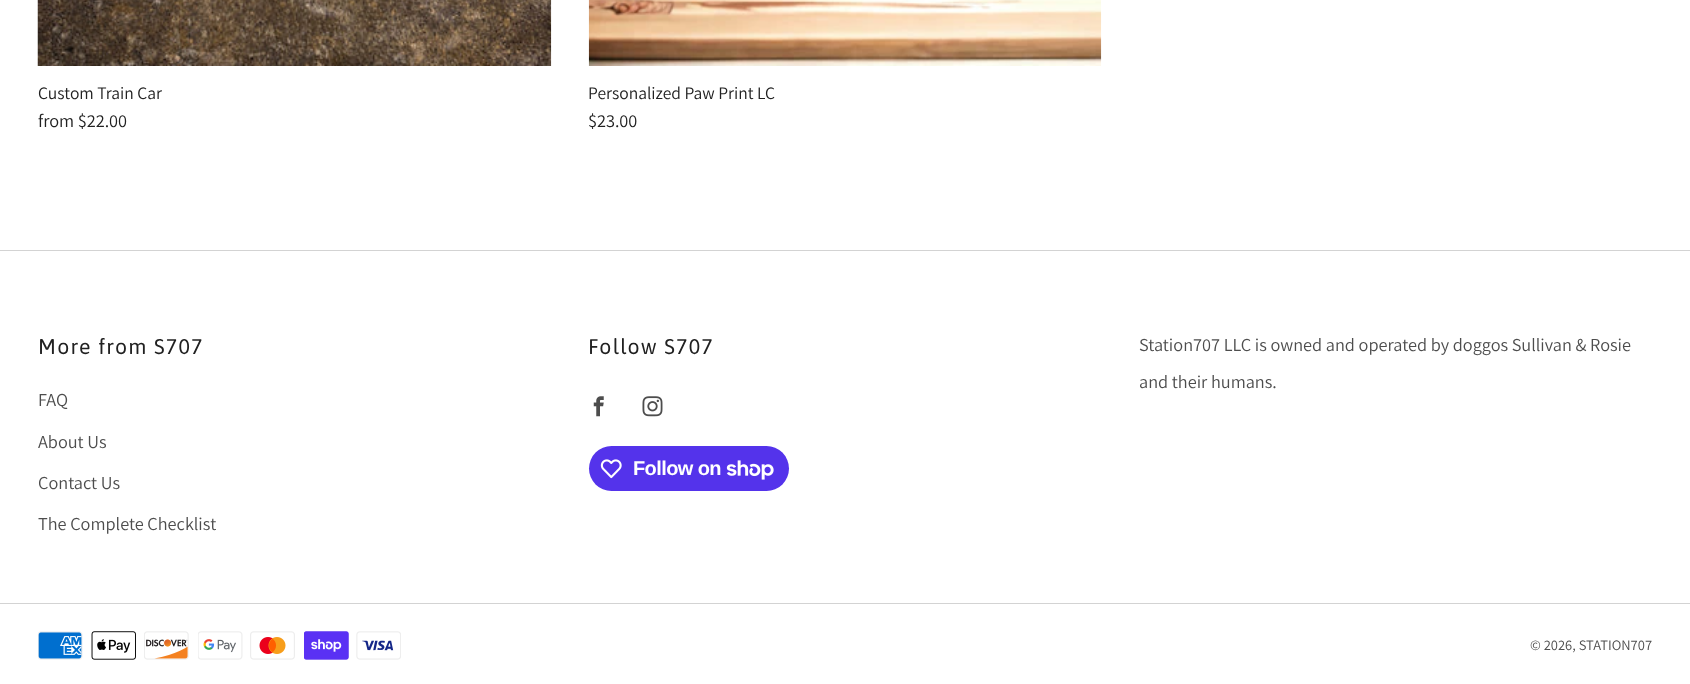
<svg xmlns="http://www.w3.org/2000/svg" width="1690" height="684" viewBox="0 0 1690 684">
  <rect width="100%" height="100%" fill="rgb(255,255,255)"/>
  <image x="37" y="0" width="515" height="66" href="pic1.png"/>
  <text x="38" y="99" font-family="Assistant" font-size="17.5" fill="rgb(33,33,33)">Custom Train Car</text>
  <text x="38" y="127" font-family="Assistant" font-size="18.25" fill="rgb(33,33,33)">from $22.00</text>
  <image x="588" y="0" width="514" height="66" href="pic2.png"/>
  <text x="588" y="99" font-family="Assistant" font-size="17.5" fill="rgb(33,33,33)">Personalized Paw Print LC</text>
  <text x="588" y="127" font-family="Assistant" font-size="18.25" fill="rgb(33,33,33)">$23.00</text>
  <rect x="0" y="250" width="1690" height="1" fill="rgb(211,211,211)"/>
  <text x="38" y="354" font-family="Asap" font-size="21.25" letter-spacing="1.25" fill="rgb(33,33,33)">More from S707</text>
  <g font-family="Assistant" font-size="18.25" fill="rgb(77,77,77)">
    <text x="38" y="406">FAQ</text>
    <text x="38" y="448">About Us</text>
    <text x="38" y="489">Contact Us</text>
    <text x="38" y="530">The Complete Checklist</text>
  </g>
  <text x="588" y="354" font-family="Asap" font-size="21.25" letter-spacing="1.25" fill="rgb(33,33,33)">Follow S707</text>
  <image x="593" y="396" width="11" height="21" href="pic3.png"/>
  <image x="642" y="396" width="21" height="21" href="pic4.png"/>
  <rect x="589" y="446" width="200" height="45" rx="22.5" fill="rgb(84,51,235)"/>
  <image x="600" y="459" width="22" height="20" href="pic5.png"/>
  <text x="633" y="475" font-family="Liberation Sans" font-size="20" font-weight="bold" letter-spacing="-0.6" fill="rgb(255,255,255)">Follow on</text>
  <image x="726" y="460" width="48" height="20" href="pic6.png"/>
  <g font-family="Assistant" font-size="18.25" fill="rgb(77,77,77)">
    <text x="1139" y="351">Station707 LLC is owned and operated by doggos Sullivan &amp; Rosie</text>
    <text x="1139" y="388">and their humans.</text>
  </g>
  <rect x="0" y="603" width="1690" height="1" fill="rgb(211,211,211)"/>
  <image x="38" y="631" width="45" height="29" href="pic7.png"/>
  <image x="91" y="631" width="45" height="29" href="pic8.png"/>
  <image x="144" y="631" width="45" height="29" href="pic9.png"/>
  <image x="198" y="631" width="45" height="29" href="pic10.png"/>
  <image x="250" y="631" width="45" height="29" href="pic11.png"/>
  <image x="304" y="631" width="45" height="29" href="pic12.png"/>
  <image x="356" y="631" width="45" height="29" href="pic13.png"/>
  <text x="1530" y="650" font-family="Assistant" font-size="14.5" fill="rgb(77,77,77)">© 2026, STATION707</text>
</svg>
